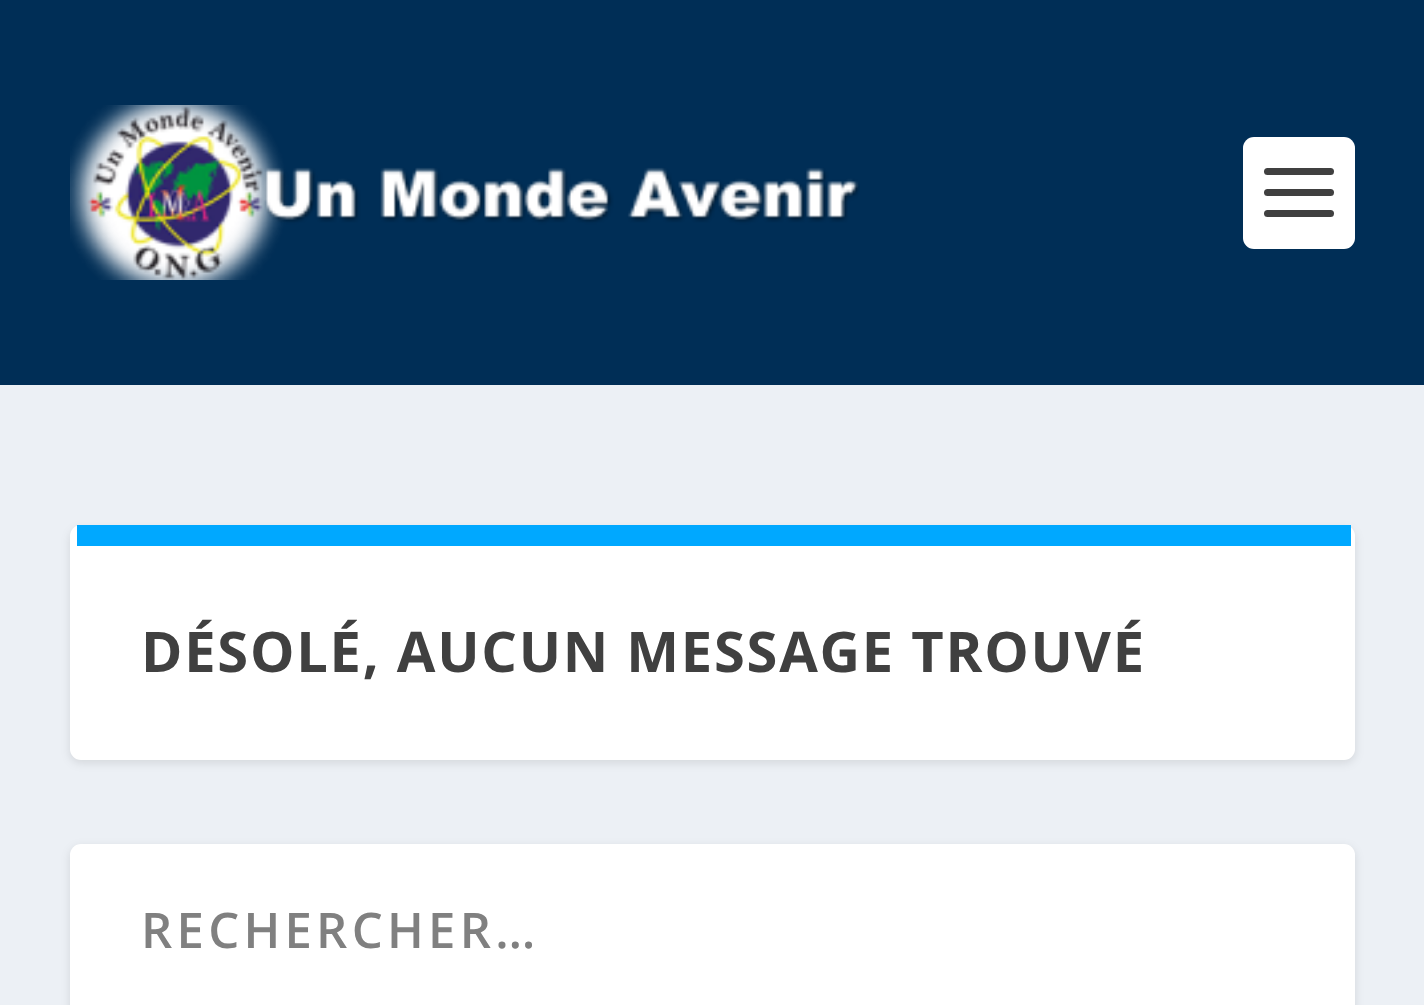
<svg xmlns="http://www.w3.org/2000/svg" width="1424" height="1005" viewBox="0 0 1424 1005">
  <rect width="100%" height="100%" fill="rgb(236,240,245)"/>
  <rect x="0" y="0" width="1424" height="385" fill="rgb(0,46,86)"/>
  <image x="70" y="105" width="790" height="175" href="pic1.png"/>
  <rect x="1243" y="137" width="112" height="112" rx="11" fill="rgb(255,255,255)"/>
  <rect x="1264" y="168" width="70" height="7" rx="3.5" fill="rgb(64,64,64)"/>
  <rect x="1264" y="189" width="70" height="7" rx="3.5" fill="rgb(64,64,64)"/>
  <rect x="1264" y="210" width="70" height="7" rx="3.5" fill="rgb(64,64,64)"/>
  <rect x="70" y="529" width="1285" height="234" rx="11" fill="rgba(0,0,0,0.1)" filter="blur(5px)"/>
  <rect x="70" y="525" width="1285" height="235" rx="11" fill="rgb(255,255,255)"/>
  <rect x="77" y="525" width="1274" height="21" fill="rgb(0,168,255)"/>
  <text x="141" y="672" font-family="Open Sans" font-size="56" font-weight="bold" letter-spacing="1.75" fill="rgb(64,64,64)">DÉSOLÉ, AUCUN MESSAGE TROUVÉ</text>
  <rect x="70" y="847" width="1285" height="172" rx="11" fill="rgba(0,0,0,0.1)" filter="blur(5px)"/>
  <rect x="70" y="844" width="1285" height="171" rx="11" fill="rgb(255,255,255)"/>
  <text x="141" y="948" font-family="Open Sans" font-size="49" font-weight="600" letter-spacing="4.25" fill="rgb(128,128,128)">RECHERCHER…</text>
</svg>
